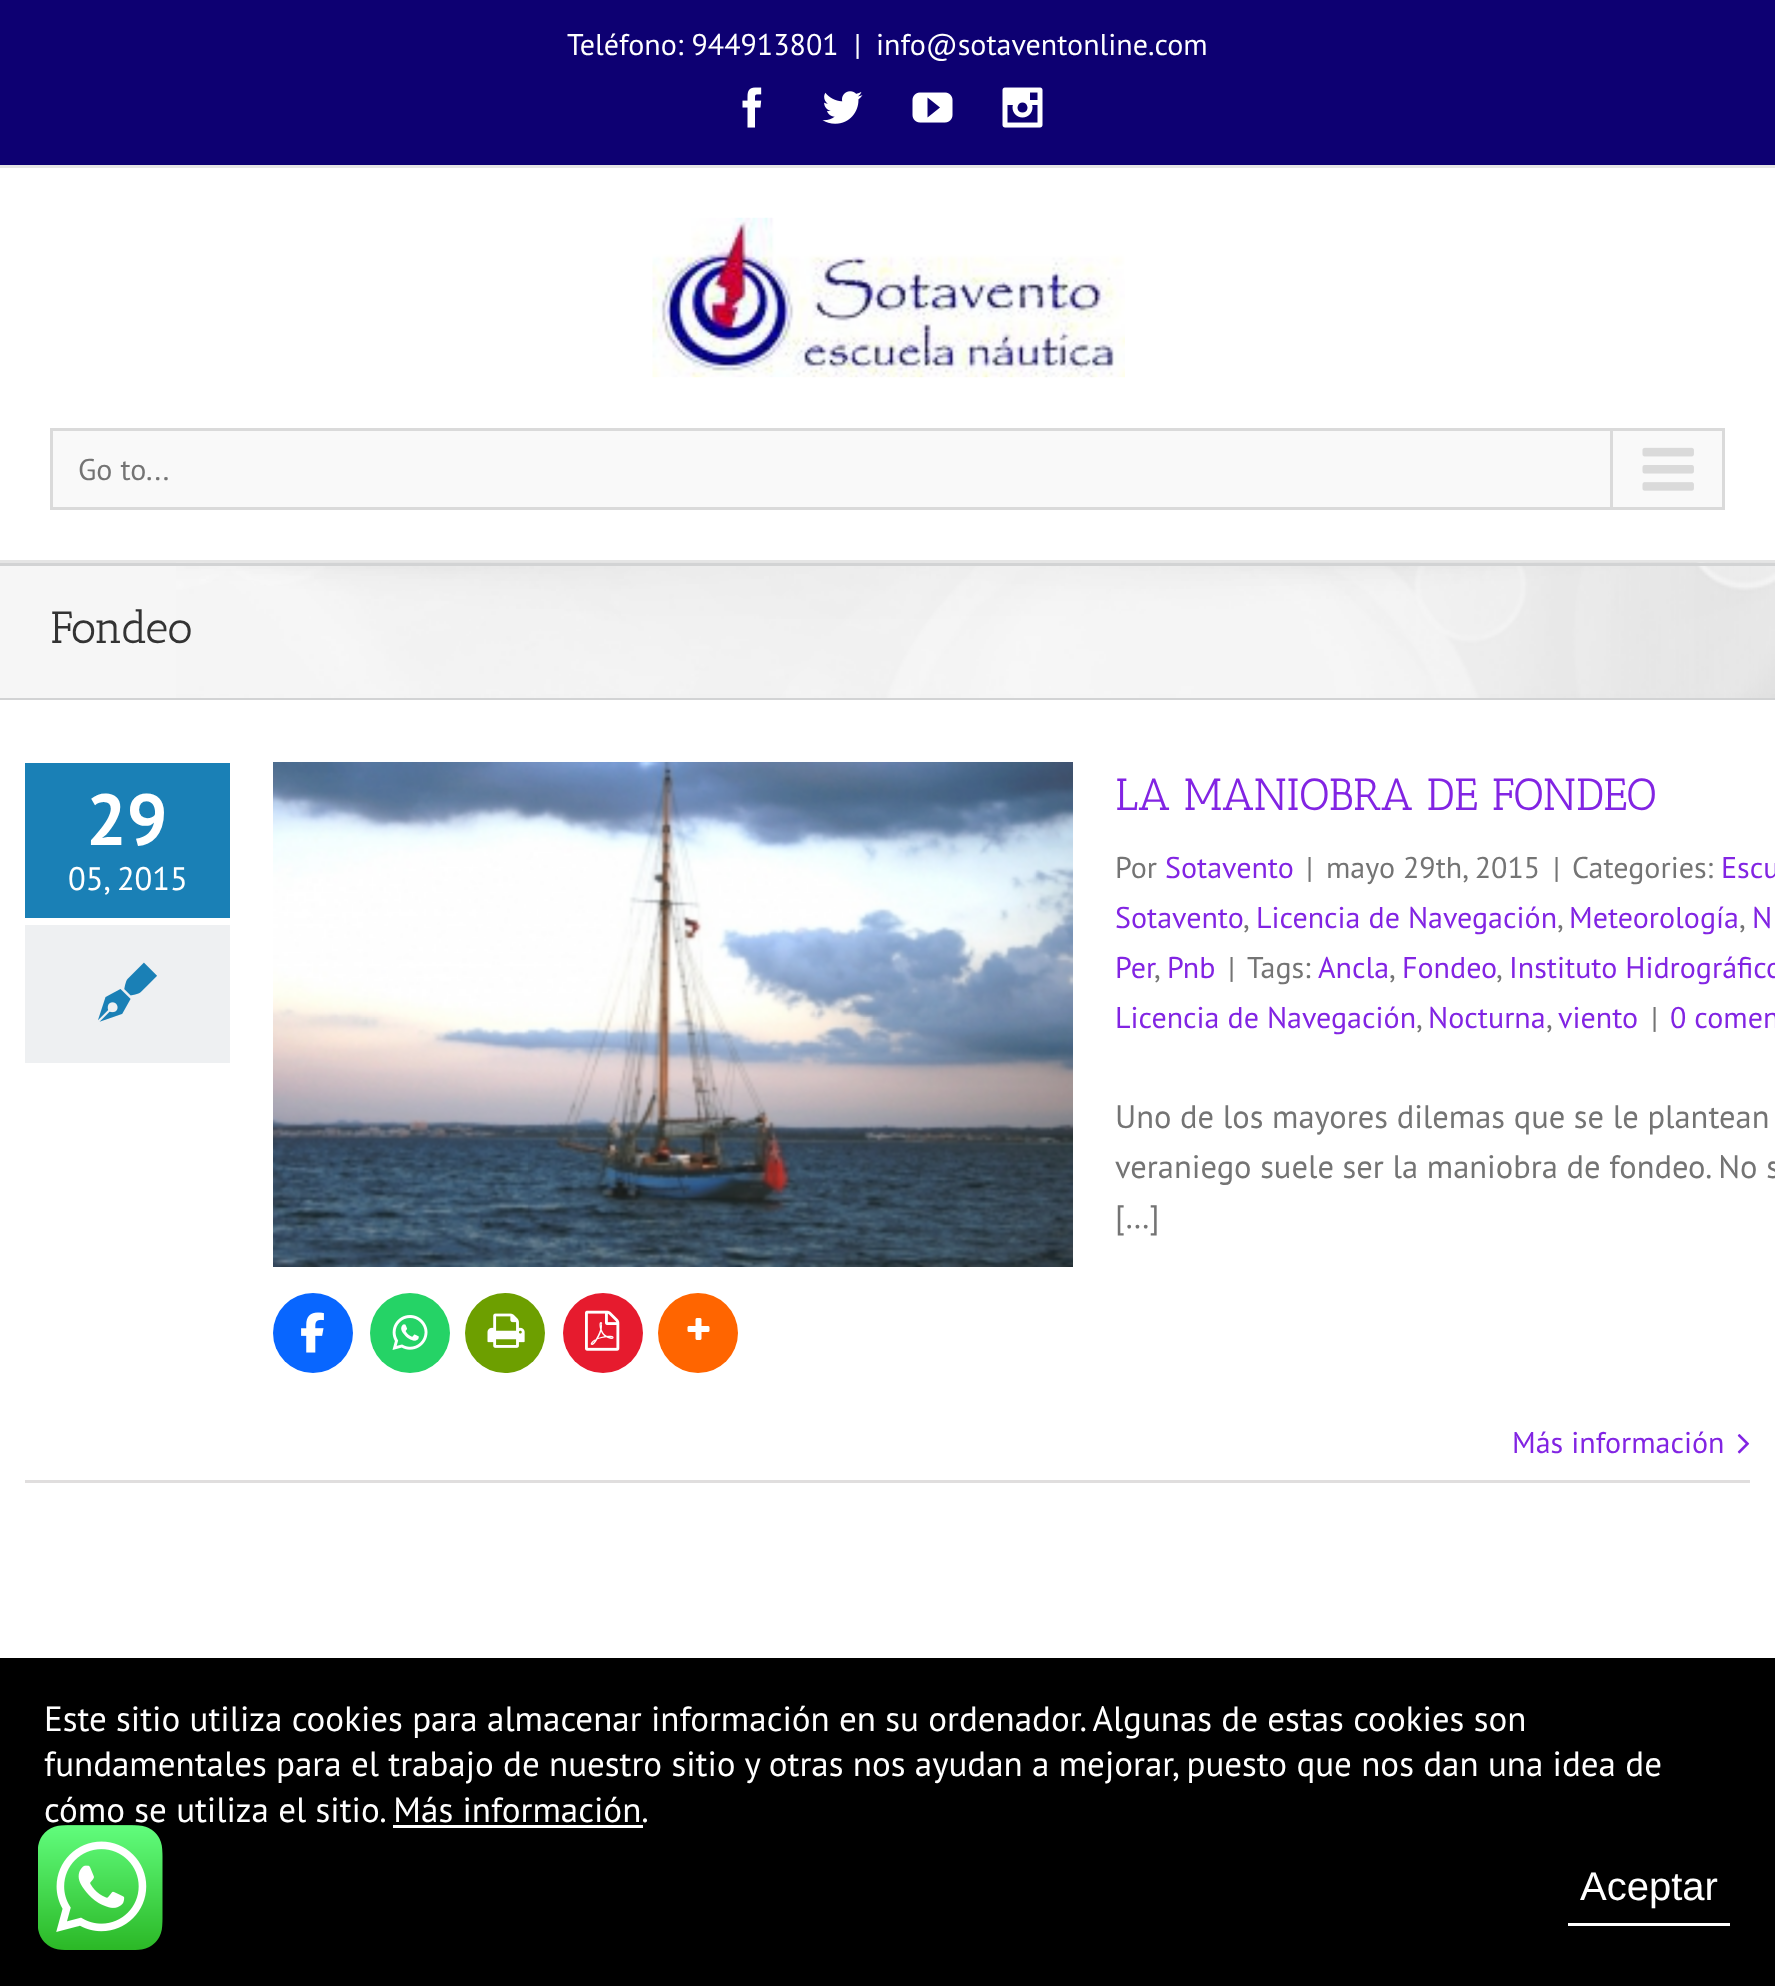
<svg xmlns="http://www.w3.org/2000/svg" width="1775" height="1986" viewBox="0 0 1775 1986">
  <rect width="100%" height="100%" fill="rgb(255,255,255)"/>
  <rect x="0" y="0" width="1775" height="165" fill="rgb(13,0,114)"/>
  <rect x="0" y="165" width="1775" height="3" fill="rgb(229,229,229)"/>
  <g font-family="PT Sans" font-size="30" fill="rgb(255,255,255)">
    <text x="567" y="55">Teléfono: 944913801</text>
    <text x="854" y="55">|</text>
    <text x="876" y="55">info@sotaventonline.com</text>
  </g>
  <image x="742" y="87" width="20" height="41" href="pic1.png"/>
  <image x="822" y="91" width="41" height="33" href="pic2.png"/>
  <image x="912" y="92" width="41" height="31" href="pic3.png"/>
  <image x="1002" y="87" width="41" height="41" href="pic4.png"/>
  <rect x="0" y="560" width="1775" height="3" fill="rgb(229,229,229)"/>
  <image x="652" y="217" width="473" height="161" href="pic5.png"/>
  <rect x="51.5" y="429.5" width="1672" height="79" fill="rgb(249,249,249)" stroke="rgb(218,218,218)" stroke-width="3"/>
  <text x="78" y="480" font-family="PT Sans" font-size="30" fill="rgb(116,116,116)">Go to...</text>
  <rect x="1610" y="430" width="3" height="78" fill="rgb(218,218,218)"/>
  <image x="1642" y="447" width="52" height="44" href="pic6.png"/>
  <rect x="0" y="566" width="1775" height="132" fill="rgb(246,246,246)"/>
  <image x="176" y="562" width="1599" height="136" href="pic7.png"/>
  <rect x="0" y="563" width="1775" height="3" fill="rgb(210,211,212)"/>
  <rect x="0" y="698" width="1775" height="2" fill="rgb(210,211,212)"/>
  <text x="50" y="643" font-family="Antic Slab" font-size="45" fill="rgb(51,51,51)">Fondeo</text>
  <rect x="25" y="763" width="205" height="155" fill="rgb(26,128,182)"/>
  <text x="86" y="845" font-family="PT Sans" font-size="72" font-weight="bold" fill="rgb(255,255,255)">29</text>
  <text x="68" y="890" font-family="PT Sans" font-size="32.5" fill="rgb(255,255,255)">05, 2015</text>
  <rect x="25" y="925" width="205" height="138" fill="rgb(238,240,242)"/>
  <image x="98" y="962" width="59" height="60" href="pic8.png"/>
  <image x="273" y="762" width="800" height="505" href="pic9.png"/>
  <text x="1115" y="810" font-family="Antic Slab" font-size="45" fill="rgb(130,36,227)">LA MANIOBRA DE FONDEO</text>
  <text x="1115" y="878" font-family="PT Sans" font-size="30" fill="rgb(116,116,116)">Por</text>
  <text x="1165" y="878" font-family="PT Sans" font-size="30" fill="rgb(130,36,227)">Sotavento</text>
  <g font-family="PT Sans" font-size="30" fill="rgb(116,116,116)">
    <text x="1306" y="878">|</text>
    <text x="1326" y="878">mayo 29th, 2015</text>
    <text x="1553" y="878">|</text>
    <text x="1572" y="878">Categories:</text>
  </g>
  <g font-family="PT Sans" font-size="30" fill="rgb(130,36,227)">
    <text x="1721" y="878">Escu</text>
    <text x="1115" y="928">Sotavento</text>
  </g>
  <text x="1243" y="928" font-family="PT Sans" font-size="30" fill="rgb(116,116,116)">,</text>
  <text x="1256" y="928" font-family="PT Sans" font-size="30" fill="rgb(130,36,227)">Licencia de Navegación</text>
  <text x="1557" y="928" font-family="PT Sans" font-size="30" fill="rgb(116,116,116)">,</text>
  <text x="1569" y="928" font-family="PT Sans" font-size="30" fill="rgb(130,36,227)">Meteorología</text>
  <text x="1739" y="928" font-family="PT Sans" font-size="30" fill="rgb(116,116,116)">,</text>
  <g font-family="PT Sans" font-size="30" fill="rgb(130,36,227)">
    <text x="1752" y="928">N</text>
    <text x="1115" y="978">Per</text>
  </g>
  <text x="1154" y="978" font-family="PT Sans" font-size="30" fill="rgb(116,116,116)">,</text>
  <text x="1167" y="978" font-family="PT Sans" font-size="30" fill="rgb(130,36,227)">Pnb</text>
  <g font-family="PT Sans" font-size="30" fill="rgb(116,116,116)">
    <text x="1228" y="978">|</text>
    <text x="1247" y="978">Tags:</text>
  </g>
  <text x="1318" y="978" font-family="PT Sans" font-size="30" fill="rgb(130,36,227)">Ancla</text>
  <text x="1389" y="978" font-family="PT Sans" font-size="30" fill="rgb(116,116,116)">,</text>
  <text x="1402" y="978" font-family="PT Sans" font-size="30" fill="rgb(130,36,227)">Fondeo</text>
  <text x="1496" y="978" font-family="PT Sans" font-size="30" fill="rgb(116,116,116)">,</text>
  <g font-family="PT Sans" font-size="30" fill="rgb(130,36,227)">
    <text x="1509" y="978">Instituto Hidrográfico</text>
    <text x="1115" y="1028">Licencia de Navegación</text>
  </g>
  <text x="1416" y="1028" font-family="PT Sans" font-size="30" fill="rgb(116,116,116)">,</text>
  <text x="1428" y="1028" font-family="PT Sans" font-size="30" fill="rgb(130,36,227)">Nocturna</text>
  <text x="1546" y="1028" font-family="PT Sans" font-size="30" fill="rgb(116,116,116)">,</text>
  <text x="1558" y="1028" font-family="PT Sans" font-size="30" fill="rgb(130,36,227)">viento</text>
  <text x="1651" y="1028" font-family="PT Sans" font-size="30" fill="rgb(116,116,116)">|</text>
  <text x="1670" y="1028" font-family="PT Sans" font-size="30" fill="rgb(130,36,227)">0 comen</text>
  <g font-family="PT Sans" font-size="32.5" fill="rgb(116,116,116)">
    <text>
      <tspan x="1115" y="1128">Uno de los mayores dilemas que se le plantean</tspan>
      <tspan x="1115" y="1178">veraniego suele ser la maniobra de fondeo. No s</tspan>
      <tspan x="1115" y="1228">[…]</tspan>
    </text>
  </g>
  <circle cx="313" cy="1333" r="40" fill="rgb(8,102,255)"/>
  <image x="301" y="1312" width="23" height="41" href="pic10.png"/>
  <circle cx="410" cy="1333" r="40" fill="rgb(37,211,102)"/>
  <image x="392" y="1315" width="36" height="35" href="pic11.png"/>
  <circle cx="505" cy="1333" r="40" fill="rgb(109,159,0)"/>
  <image x="487" y="1313" width="38" height="35" href="pic12.png"/>
  <circle cx="603" cy="1333" r="40" fill="rgb(230,27,46)"/>
  <image x="585" y="1310" width="35" height="41" href="pic13.png"/>
  <circle cx="698" cy="1333" r="40" fill="rgb(255,101,0)"/>
  <image x="687" y="1318" width="23" height="22" href="pic14.png"/>
  <rect x="25" y="1480" width="1725" height="3" fill="rgb(224,222,222)"/>
  <text x="1512" y="1453" font-family="PT Sans" font-size="30" fill="rgb(130,36,227)">Más información</text>
  <image x="1737" y="1434" width="13" height="20" href="pic15.png"/>
  <rect x="0" y="1658" width="1775" height="328" fill="rgb(0,0,0)"/>
  <g font-family="PT Sans" font-size="35" fill="rgb(255,255,255)">
    <text>
      <tspan x="44" y="1731">Este sitio utiliza cookies para almacenar información en su ordenador. Algunas de estas cookies son</tspan>
      <tspan x="44" y="1776">fundamentales para el trabajo de nuestro sitio y otras nos ayudan a mejorar, puesto que nos dan una idea de</tspan>
      <tspan x="44" y="1822">cómo se utiliza el sitio. Más información.</tspan>
    </text>
  </g>
  <rect x="393" y="1825" width="250" height="3" fill="rgb(255,255,255)"/>
  <rect x="1568" y="1923" width="162" height="3" fill="rgb(255,255,255)"/>
  <text x="1580" y="1900" font-family="Liberation Sans" font-size="40" fill="rgb(255,255,255)">Aceptar</text>
  <image x="38" y="1825" width="125" height="125" href="pic16.png"/>
</svg>
